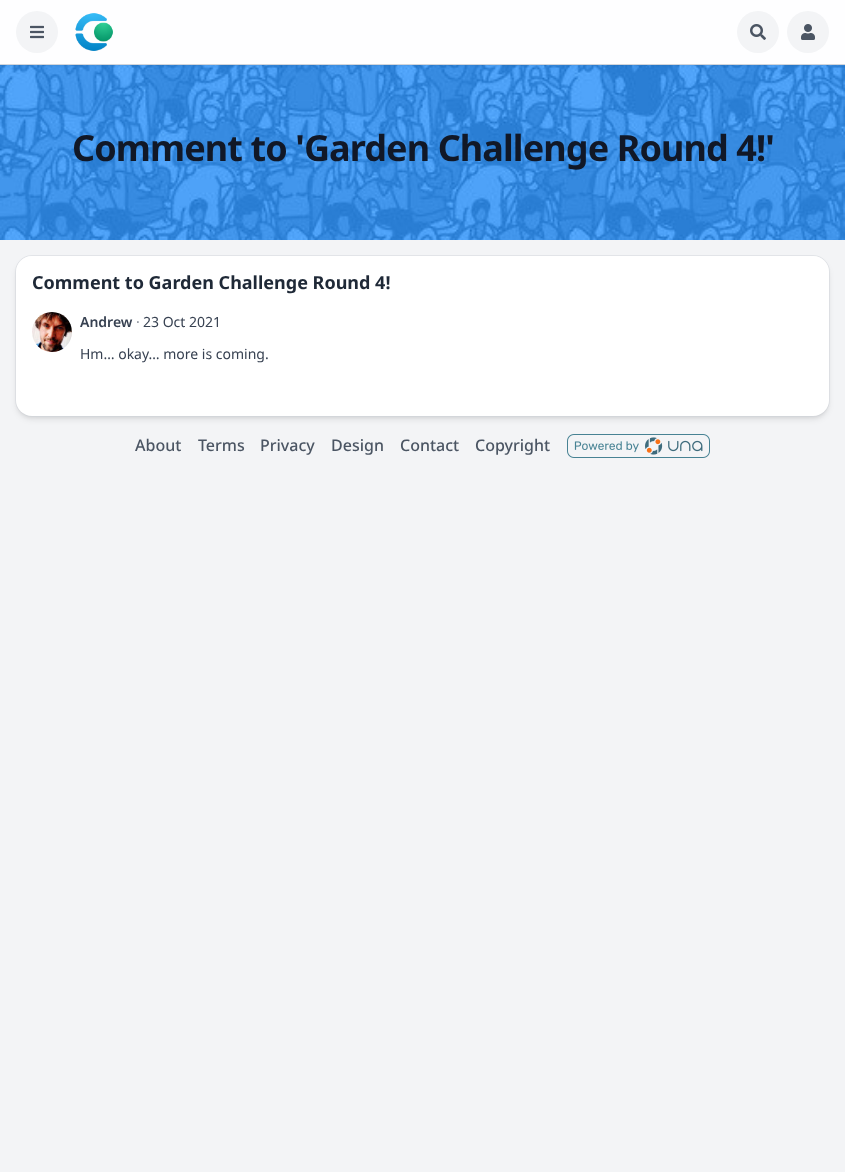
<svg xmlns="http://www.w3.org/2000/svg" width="845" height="1172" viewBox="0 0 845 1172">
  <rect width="100%" height="100%" fill="rgb(243,244,246)"/>
  <image x="0" y="65" width="845" height="175" href="pic5.png"/>
  <rect x="0" y="1" width="845" height="64" fill="rgba(0,0,0,0.1)" filter="blur(1.5px)"/>
  <rect x="-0.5" y="-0.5" width="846" height="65" fill="none" stroke="rgb(209,213,219)"/>
  <rect x="0" y="0" width="845" height="64" fill="rgb(254,254,255)"/>
  <circle cx="37" cy="32" r="21" fill="rgb(243,244,246)"/>
  <image x="30" y="25" width="14" height="14" href="pic1.png"/>
  <image x="75" y="13" width="38" height="38" href="pic2.png"/>
  <circle cx="758" cy="32" r="21" fill="rgb(243,244,246)"/>
  <image x="750" y="24" width="16" height="16" href="pic3.png"/>
  <circle cx="808" cy="32" r="21" fill="rgb(243,244,246)"/>
  <image x="801" y="24" width="14" height="16" href="pic4.png"/>
  <text x="72" y="161" font-family="Noto Sans" font-size="36" font-weight="bold" letter-spacing="-0.9" fill="rgb(17,24,39)">Comment to 'Garden Challenge Round 4!'</text>
  <rect x="18" y="260" width="809" height="156" rx="14" fill="rgba(0,0,0,0.1)" filter="blur(2px)"/>
  <rect x="17" y="261" width="811" height="158" rx="15" fill="rgba(0,0,0,0.1)" filter="blur(3px)"/>
  <rect x="15.5" y="255.5" width="814" height="161" rx="16.5" fill="none" stroke="rgba(209,213,219,0.5)"/>
  <rect x="16" y="256" width="813" height="160" rx="16" fill="rgb(255,255,255)"/>
  <text x="32" y="289" font-family="Noto Sans" font-size="18" font-weight="bold" fill="rgb(31,41,55)">Comment to Garden Challenge Round 4!</text>
  <image x="32" y="312" width="40" height="40" href="pic6.png"/>
  <text x="80" y="327" font-family="Noto Sans" font-size="14" font-weight="600" fill="rgb(55,65,81)">Andrew</text>
  <text x="136" y="327" font-family="Noto Sans" font-size="14" fill="rgb(135,141,151)">·</text>
  <g font-family="Noto Sans" font-size="14" fill="rgb(55,65,81)">
    <text x="143" y="327">23 Oct 2021</text>
    <text x="80" y="359">Hm… okay… more is coming.</text>
  </g>
  <g font-family="Noto Sans" font-size="16" font-weight="500" fill="rgb(75,85,99)">
    <text x="135" y="451">About</text>
    <text x="198" y="451">Terms</text>
    <text x="260" y="451">Privacy</text>
    <text x="331" y="451">Design</text>
    <text x="400" y="451">Contact</text>
    <text x="475" y="451">Copyright</text>
  </g>
  <image x="567" y="434" width="143" height="24" href="pic7.png"/>
</svg>
